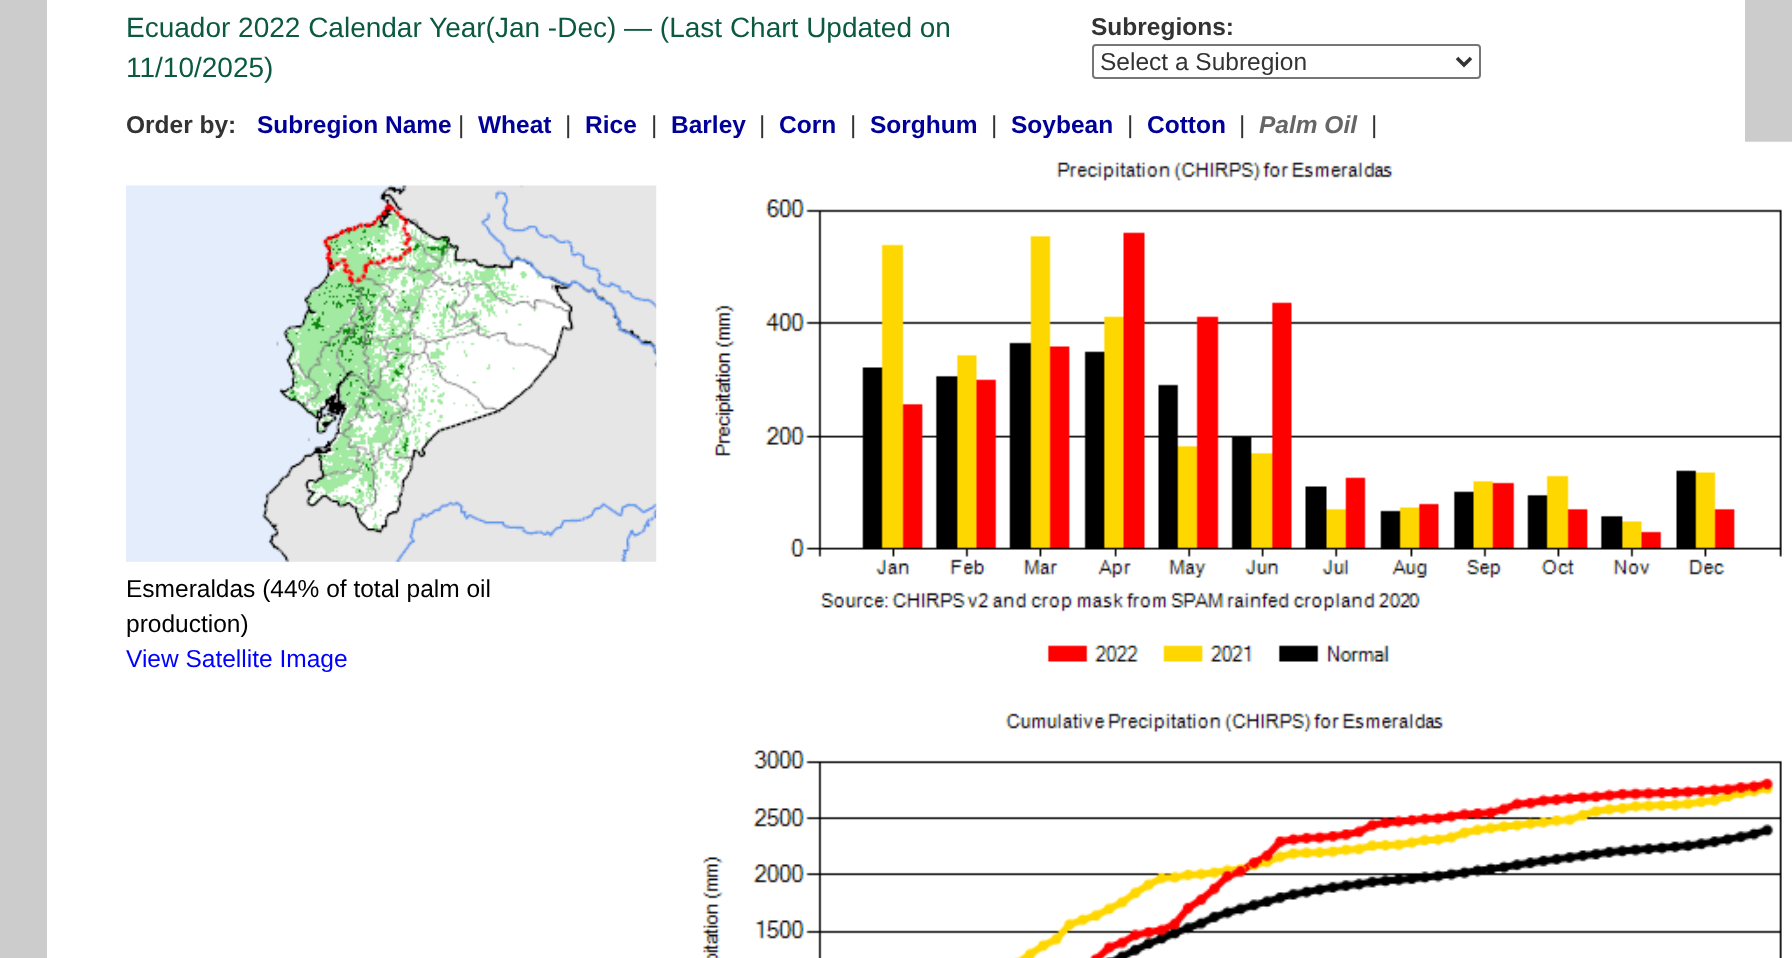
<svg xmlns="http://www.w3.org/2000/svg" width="1792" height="958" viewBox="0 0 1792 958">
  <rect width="100%" height="100%" fill="rgb(204,204,204)"/>
  <rect x="47" y="0" width="1698" height="958" fill="rgb(255,255,255)"/>
  <g font-family="Liberation Sans" font-size="28" fill="rgb(11,89,65)">
    <text>
      <tspan x="126" y="37">Ecuador 2022 Calendar Year(Jan -Dec) — (Last Chart Updated on</tspan>
      <tspan x="126" y="77">11/10/2025)</tspan>
    </text>
  </g>
  <text x="1091" y="35" font-family="Liberation Sans" font-size="24.5" font-weight="bold" fill="rgb(51,51,51)">Subregions:</text>
  <rect x="1093" y="45" width="387" height="33" rx="3" fill="none" stroke="rgb(118,118,118)" stroke-width="2"/>
  <path d="M1457 58L1464 65L1471 58" fill="none" stroke="rgb(51,51,51)" stroke-width="3.5"/>
  <text x="1100" y="70" font-family="Liberation Sans" font-size="24.5" fill="rgb(51,51,51)">Select a Subregion</text>
  <text x="126" y="133" font-family="Liberation Sans" font-size="24.5" font-weight="bold" fill="rgb(51,51,51)">Order by:</text>
  <text x="257" y="133" font-family="Liberation Sans" font-size="24.5" font-weight="bold" fill="rgb(0,0,153)">Subregion Name</text>
  <text x="458" y="133" font-family="Liberation Sans" font-size="24.5" fill="rgb(51,51,51)">|</text>
  <text x="478" y="133" font-family="Liberation Sans" font-size="24.5" font-weight="bold" fill="rgb(0,0,153)">Wheat</text>
  <text x="565" y="133" font-family="Liberation Sans" font-size="24.5" fill="rgb(51,51,51)">|</text>
  <text x="585" y="133" font-family="Liberation Sans" font-size="24.5" font-weight="bold" fill="rgb(0,0,153)">Rice</text>
  <text x="651" y="133" font-family="Liberation Sans" font-size="24.5" fill="rgb(51,51,51)">|</text>
  <text x="671" y="133" font-family="Liberation Sans" font-size="24.5" font-weight="bold" fill="rgb(0,0,153)">Barley</text>
  <text x="759" y="133" font-family="Liberation Sans" font-size="24.5" fill="rgb(51,51,51)">|</text>
  <text x="779" y="133" font-family="Liberation Sans" font-size="24.5" font-weight="bold" fill="rgb(0,0,153)">Corn</text>
  <text x="850" y="133" font-family="Liberation Sans" font-size="24.5" fill="rgb(51,51,51)">|</text>
  <text x="870" y="133" font-family="Liberation Sans" font-size="24.5" font-weight="bold" fill="rgb(0,0,153)">Sorghum</text>
  <text x="991" y="133" font-family="Liberation Sans" font-size="24.5" fill="rgb(51,51,51)">|</text>
  <text x="1011" y="133" font-family="Liberation Sans" font-size="24.5" font-weight="bold" fill="rgb(0,0,153)">Soybean</text>
  <text x="1127" y="133" font-family="Liberation Sans" font-size="24.5" fill="rgb(51,51,51)">|</text>
  <text x="1147" y="133" font-family="Liberation Sans" font-size="24.5" font-weight="bold" fill="rgb(0,0,153)">Cotton</text>
  <text x="1239" y="133" font-family="Liberation Sans" font-size="24.5" fill="rgb(51,51,51)">|</text>
  <text x="1259" y="133" font-family="Liberation Sans" font-size="24.5" font-weight="bold" font-style="italic" fill="rgb(102,102,102)">Palm Oil</text>
  <text x="1371" y="133" font-family="Liberation Sans" font-size="24.5" fill="rgb(51,51,51)">|</text>
  <image x="126" y="185" width="531" height="377" href="pic1.png"/>
  <g font-family="Liberation Sans" font-size="24.5" fill="rgb(0,0,0)">
    <text>
      <tspan x="126" y="597">Esmeraldas (44% of total palm oil</tspan>
      <tspan x="126" y="632">production)</tspan>
    </text>
  </g>
  <text x="126" y="667" font-family="Liberation Sans" font-size="24.5" fill="rgb(0,0,255)">View Satellite Image</text>
  <image x="656" y="141" width="1136" height="552" href="pic2.png"/>
  <image x="701" y="693" width="1091" height="265" href="pic3.png"/>
</svg>
